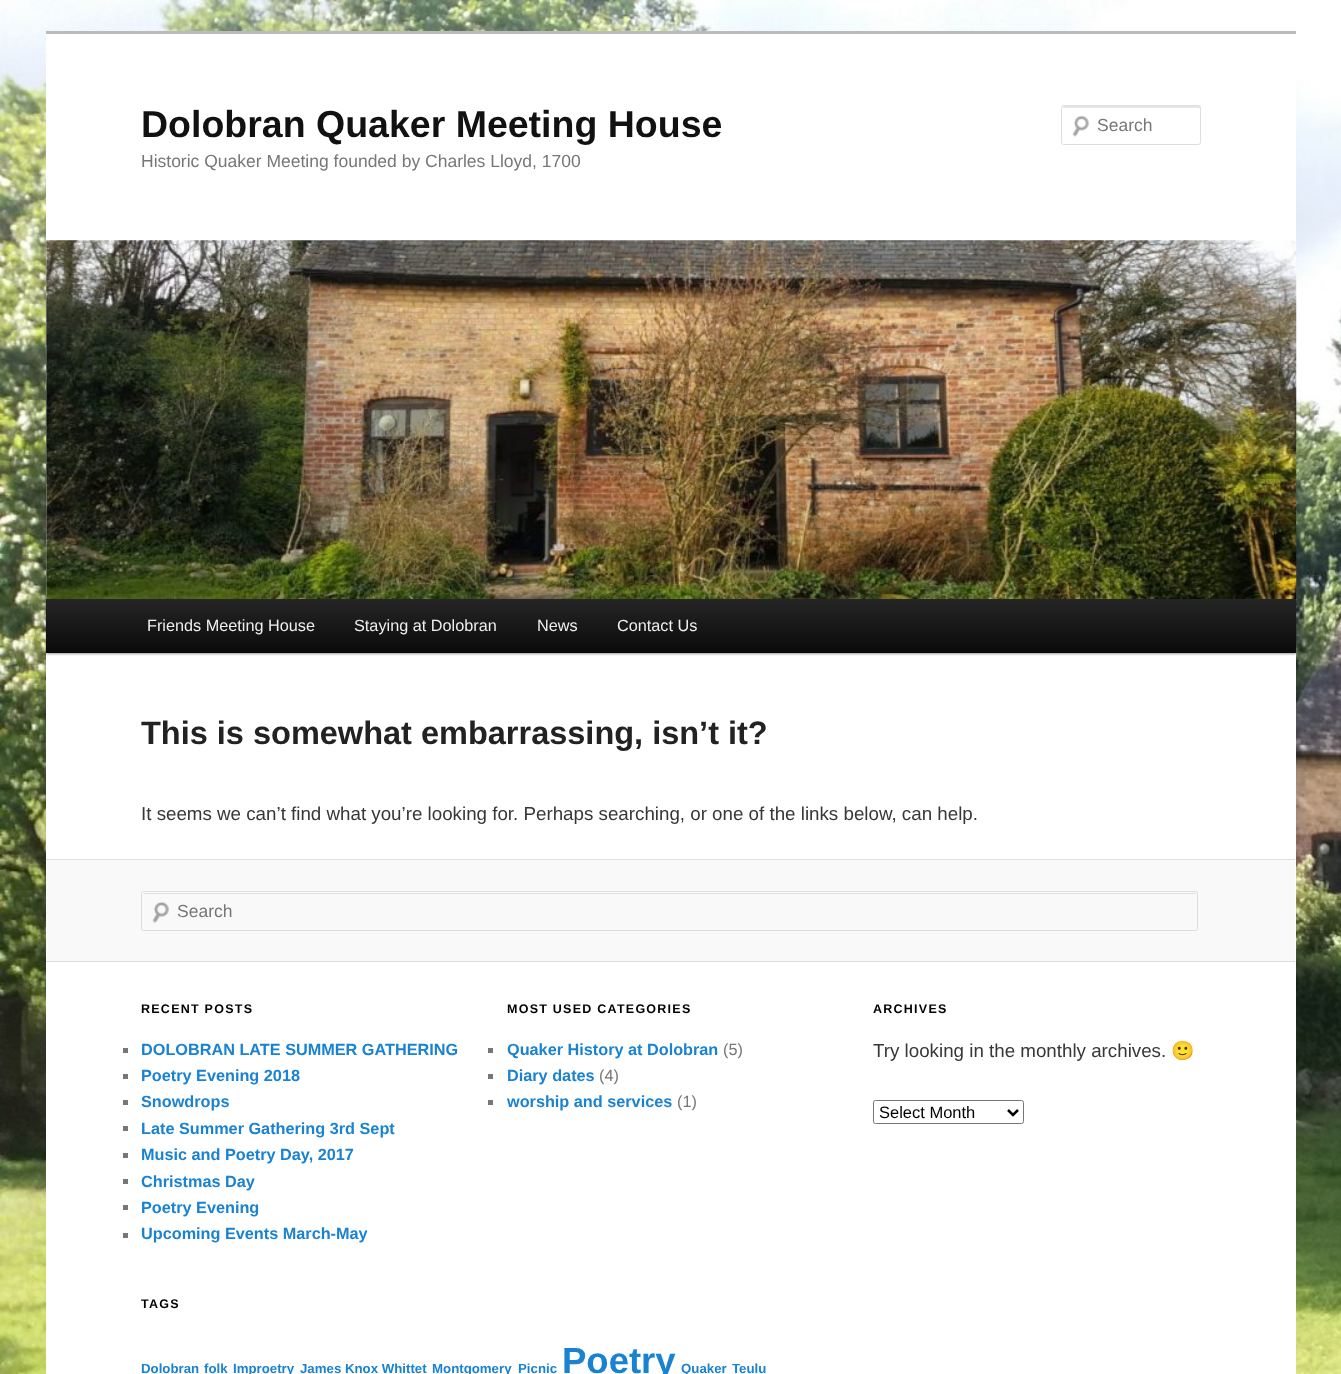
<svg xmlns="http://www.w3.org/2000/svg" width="1341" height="1374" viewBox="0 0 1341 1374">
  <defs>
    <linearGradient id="g1" gradientUnits="userSpaceOnUse" x1="671" y1="599" x2="671" y2="653"><stop offset="0" stop-color="rgb(37,37,37)"/><stop offset="1" stop-color="rgb(10,10,10)"/></linearGradient>
  </defs>
  <rect width="100%" height="100%" fill="rgb(255,255,255)"/>
  <image x="0" y="0" width="1341" height="1374" href="pic1.png"/>
  <rect x="46" y="34" width="1250" height="1340" fill="rgb(255,255,255)"/>
  <rect x="46" y="31" width="1250" height="3" fill="rgb(187,187,187)"/>
  <text x="141" y="137" font-family="Liberation Sans" font-size="37.5" font-weight="bold" fill="rgb(17,17,17)">Dolobran Quaker Meeting House</text>
  <text x="141" y="167" font-family="Liberation Sans" font-size="17.5" fill="rgb(119,119,119)">Historic Quaker Meeting founded by Charles Lloyd, 1700</text>
  <image x="1072" y="115" width="17" height="22" href="pic2.png"/>
  <path d="M1064 108H1199L1200 109V107C1200 106 1200 106 1199 106H1064C1063 106 1063 106 1063 107V108Z" fill="rgb(230,230,230)"/>
  <rect x="1061.5" y="105.5" width="139" height="39" rx="2" fill="none" stroke="rgb(221,221,221)"/>
  <text x="1097" y="131" font-family="Liberation Sans" font-size="17.5" fill="rgb(119,119,119)">Search</text>
  <rect x="46" y="600" width="1250" height="54" fill="rgba(0,0,0,0.4)" filter="blur(1px)"/>
  <image x="46" y="240" width="1251" height="359" href="pic3.png"/>
  <rect x="46" y="599" width="1250" height="54" fill="url(#g1)"/>
  <g font-family="Liberation Sans" font-size="16.25" fill="rgb(238,238,238)">
    <text x="147" y="631">Friends Meeting House</text>
    <text x="354" y="631">Staying at Dolobran</text>
    <text x="537" y="631">News</text>
    <text x="617" y="631">Contact Us</text>
  </g>
  <text x="141" y="744" font-family="Liberation Sans" font-size="32.5" font-weight="bold" fill="rgb(34,34,34)">This is somewhat embarrassing, isn’t it?</text>
  <text x="141" y="820" font-family="Liberation Sans" font-size="18.75" fill="rgb(55,55,55)">It seems we can’t find what you’re looking for. Perhaps searching, or one of the links below, can help.</text>
  <rect x="46" y="860" width="1249" height="101" fill="rgb(249,249,249)"/>
  <rect x="46" y="859" width="1249" height="1" fill="rgb(221,221,221)"/>
  <rect x="46" y="961" width="1249" height="1" fill="rgb(221,221,221)"/>
  <image x="152" y="901" width="17" height="22" href="pic4.png"/>
  <path d="M144 894H1195C1196 894 1196 894 1196 895C1196 894 1196 893 1195 893H144L143 894Z" fill="rgb(224,224,224)"/>
  <rect x="141.5" y="891.5" width="1056" height="39" rx="2" fill="none" stroke="rgb(221,221,221)"/>
  <text x="177" y="917" font-family="Liberation Sans" font-size="17.5" fill="rgb(119,119,119)">Search</text>
  <text x="141" y="1013" font-family="Liberation Sans" font-size="12.5" font-weight="bold" letter-spacing="1.25" fill="rgb(0,0,0)">RECENT POSTS</text>
  <rect x="123" y="1048" width="5" height="5" fill="rgb(119,119,119)"/>
  <text x="141" y="1055" font-family="Liberation Sans" font-size="16.25" font-weight="bold" fill="rgb(25,130,209)">DOLOBRAN LATE SUMMER GATHERING</text>
  <rect x="123" y="1074" width="5" height="5" fill="rgb(119,119,119)"/>
  <text x="141" y="1081" font-family="Liberation Sans" font-size="16.25" font-weight="bold" fill="rgb(25,130,209)">Poetry Evening 2018</text>
  <rect x="123" y="1100" width="5" height="5" fill="rgb(119,119,119)"/>
  <text x="141" y="1107" font-family="Liberation Sans" font-size="16.25" font-weight="bold" fill="rgb(25,130,209)">Snowdrops</text>
  <rect x="123" y="1126" width="5" height="5" fill="rgb(119,119,119)"/>
  <text x="141" y="1134" font-family="Liberation Sans" font-size="16.25" font-weight="bold" fill="rgb(25,130,209)">Late Summer Gathering 3rd Sept</text>
  <rect x="123" y="1153" width="5" height="5" fill="rgb(119,119,119)"/>
  <text x="141" y="1160" font-family="Liberation Sans" font-size="16.25" font-weight="bold" fill="rgb(25,130,209)">Music and Poetry Day, 2017</text>
  <rect x="123" y="1179" width="5" height="5" fill="rgb(119,119,119)"/>
  <text x="141" y="1187" font-family="Liberation Sans" font-size="16.25" font-weight="bold" fill="rgb(25,130,209)">Christmas Day</text>
  <rect x="123" y="1205" width="5" height="5" fill="rgb(119,119,119)"/>
  <text x="141" y="1213" font-family="Liberation Sans" font-size="16.25" font-weight="bold" fill="rgb(25,130,209)">Poetry Evening</text>
  <rect x="123" y="1233" width="5" height="5" fill="rgb(119,119,119)"/>
  <text x="141" y="1239" font-family="Liberation Sans" font-size="16.25" font-weight="bold" fill="rgb(25,130,209)">Upcoming Events March-May</text>
  <text x="507" y="1013" font-family="Liberation Sans" font-size="12.5" font-weight="bold" letter-spacing="1.25" fill="rgb(0,0,0)">MOST USED CATEGORIES</text>
  <rect x="488" y="1048" width="5" height="5" fill="rgb(119,119,119)"/>
  <text x="507" y="1055" font-family="Liberation Sans" font-size="16.25" font-weight="bold" fill="rgb(25,130,209)">Quaker History at Dolobran</text>
  <text x="723" y="1055" font-family="Liberation Sans" font-size="16.25" fill="rgb(119,119,119)">(5)</text>
  <rect x="488" y="1074" width="5" height="5" fill="rgb(119,119,119)"/>
  <text x="507" y="1081" font-family="Liberation Sans" font-size="16.25" font-weight="bold" fill="rgb(25,130,209)">Diary dates</text>
  <text x="599" y="1081" font-family="Liberation Sans" font-size="16.25" fill="rgb(119,119,119)">(4)</text>
  <rect x="488" y="1100" width="5" height="5" fill="rgb(119,119,119)"/>
  <text x="507" y="1107" font-family="Liberation Sans" font-size="16.25" font-weight="bold" fill="rgb(25,130,209)">worship and services</text>
  <text x="677" y="1107" font-family="Liberation Sans" font-size="16.25" fill="rgb(119,119,119)">(1)</text>
  <text x="873" y="1013" font-family="Liberation Sans" font-size="12.5" font-weight="bold" letter-spacing="1.25" fill="rgb(0,0,0)">ARCHIVES</text>
  <text x="873" y="1057" font-family="Liberation Sans" font-size="18.75" fill="rgb(55,55,55)">Try looking in the monthly archives.</text>
  <text x="1171" y="1057" font-family="Noto Color Emoji" font-size="18.75" fill="rgb(55,55,55)">🙂</text>
  <rect x="873.5" y="1100.5" width="150" height="23" rx="2" fill="none" stroke="rgb(118,118,118)"/>
  <path d="M1008 1110L1013 1115L1018 1110" fill="none" stroke="rgb(0,0,0)" stroke-width="2.5"/>
  <text x="879" y="1118" font-family="Liberation Sans" font-size="16.5" fill="rgb(0,0,0)">Select Month</text>
  <text x="141" y="1308" font-family="Liberation Sans" font-size="12.5" font-weight="bold" letter-spacing="1.25" fill="rgb(0,0,0)">TAGS</text>
  <g font-family="Liberation Sans" font-size="13.25" font-weight="bold" fill="rgb(25,130,209)">
    <text x="141" y="1373">Dolobran</text>
    <text x="204" y="1373">folk</text>
    <text x="233" y="1373">Improetry</text>
    <text x="300" y="1373">James Knox Whittet</text>
    <text x="432" y="1373">Montgomery</text>
    <text x="518" y="1373">Picnic</text>
  </g>
  <text x="562" y="1373" font-family="Liberation Sans" font-size="36.5" font-weight="bold" fill="rgb(25,130,209)">Poetry</text>
  <g font-family="Liberation Sans" font-size="13.25" font-weight="bold" fill="rgb(25,130,209)">
    <text x="681" y="1373">Quaker</text>
    <text x="732" y="1373">Teulu</text>
  </g>
</svg>
